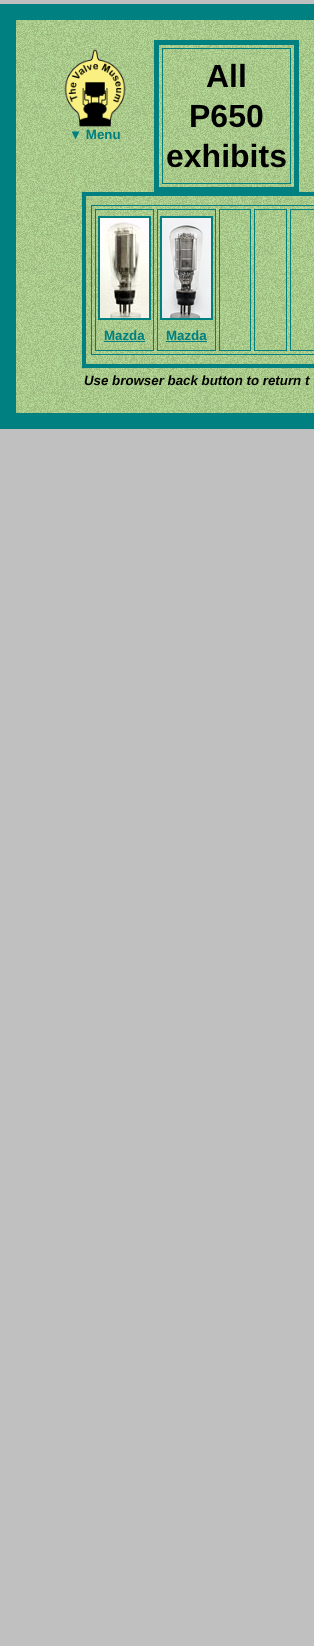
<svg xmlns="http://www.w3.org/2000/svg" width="314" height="1646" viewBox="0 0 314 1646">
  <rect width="100%" height="100%" fill="rgb(192,192,192)"/>
  <rect x="7.5" y="11.5" width="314" height="410" fill="none" stroke="rgb(0,128,128)" stroke-width="15"/>
  <rect x="15.5" y="19.5" width="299" height="394" fill="none" stroke="rgb(0,128,128)"/>
  <image x="16" y="20" width="298" height="393" href="pic1.png"/>
  <image x="36" y="40" width="278" height="152" href="pic2.png"/>
  <image x="64" y="49" width="62" height="78" href="pic3.png"/>
  <text x="69" y="139" font-family="Liberation Sans" font-size="13.3" font-weight="bold" fill="rgb(0,128,128)">▼ Menu</text>
  <image x="159" y="45" width="135" height="142" href="pic4.png"/>
  <rect x="156.5" y="42.5" width="140" height="147" fill="none" stroke="rgb(0,128,128)" stroke-width="5"/>
  <rect x="162.5" y="48.5" width="128" height="135" fill="none" stroke="rgb(0,128,128)"/>
  <g font-family="Liberation Sans" font-size="32" font-weight="bold" fill="rgb(0,0,0)">
    <text x="206" y="87">All</text>
    <text x="189" y="127">P650</text>
    <text x="166" y="167">exhibits</text>
  </g>
  <image x="86" y="196" width="228" height="168" href="pic5.png"/>
  <rect x="83.5" y="193.5" width="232" height="173" fill="none" stroke="rgb(0,128,128)" stroke-width="3"/>
  <rect x="85.5" y="195.5" width="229" height="169" fill="none" stroke="rgb(0,128,128)"/>
  <image x="92" y="206" width="222" height="148" href="pic6.png"/>
  <rect x="91.5" y="205.5" width="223" height="149" fill="none" stroke="rgb(0,128,128)"/>
  <rect x="95.5" y="209.5" width="58" height="141" fill="none" stroke="rgb(0,128,128)"/>
  <rect x="99" y="217" width="51" height="102" fill="none" stroke="rgb(0,128,128)" stroke-width="2"/>
  <image x="100" y="218" width="49" height="100" href="pic7.png"/>
  <text x="104" y="340" font-family="Liberation Sans" font-size="13.3" font-weight="bold" fill="rgb(0,128,128)">Mazda</text>
  <rect x="104" y="341" width="41" height="1" fill="rgb(0,128,128)"/>
  <rect x="157.5" y="209.5" width="58" height="141" fill="none" stroke="rgb(0,128,128)"/>
  <rect x="161" y="217" width="51" height="102" fill="none" stroke="rgb(0,128,128)" stroke-width="2"/>
  <image x="162" y="218" width="49" height="100" href="pic8.png"/>
  <text x="166" y="340" font-family="Liberation Sans" font-size="13.3" font-weight="bold" fill="rgb(0,128,128)">Mazda</text>
  <rect x="166" y="341" width="41" height="1" fill="rgb(0,128,128)"/>
  <rect x="219.5" y="209.5" width="31" height="141" fill="none" stroke="rgb(0,128,128)"/>
  <rect x="254.5" y="209.5" width="32" height="141" fill="none" stroke="rgb(0,128,128)"/>
  <rect x="290.5" y="209.5" width="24" height="141" fill="none" stroke="rgb(0,128,128)"/>
  <text x="84" y="385" font-family="Liberation Sans" font-size="13.3" font-weight="bold" font-style="italic" fill="rgb(0,0,0)">Use browser back button to return t</text>
</svg>
